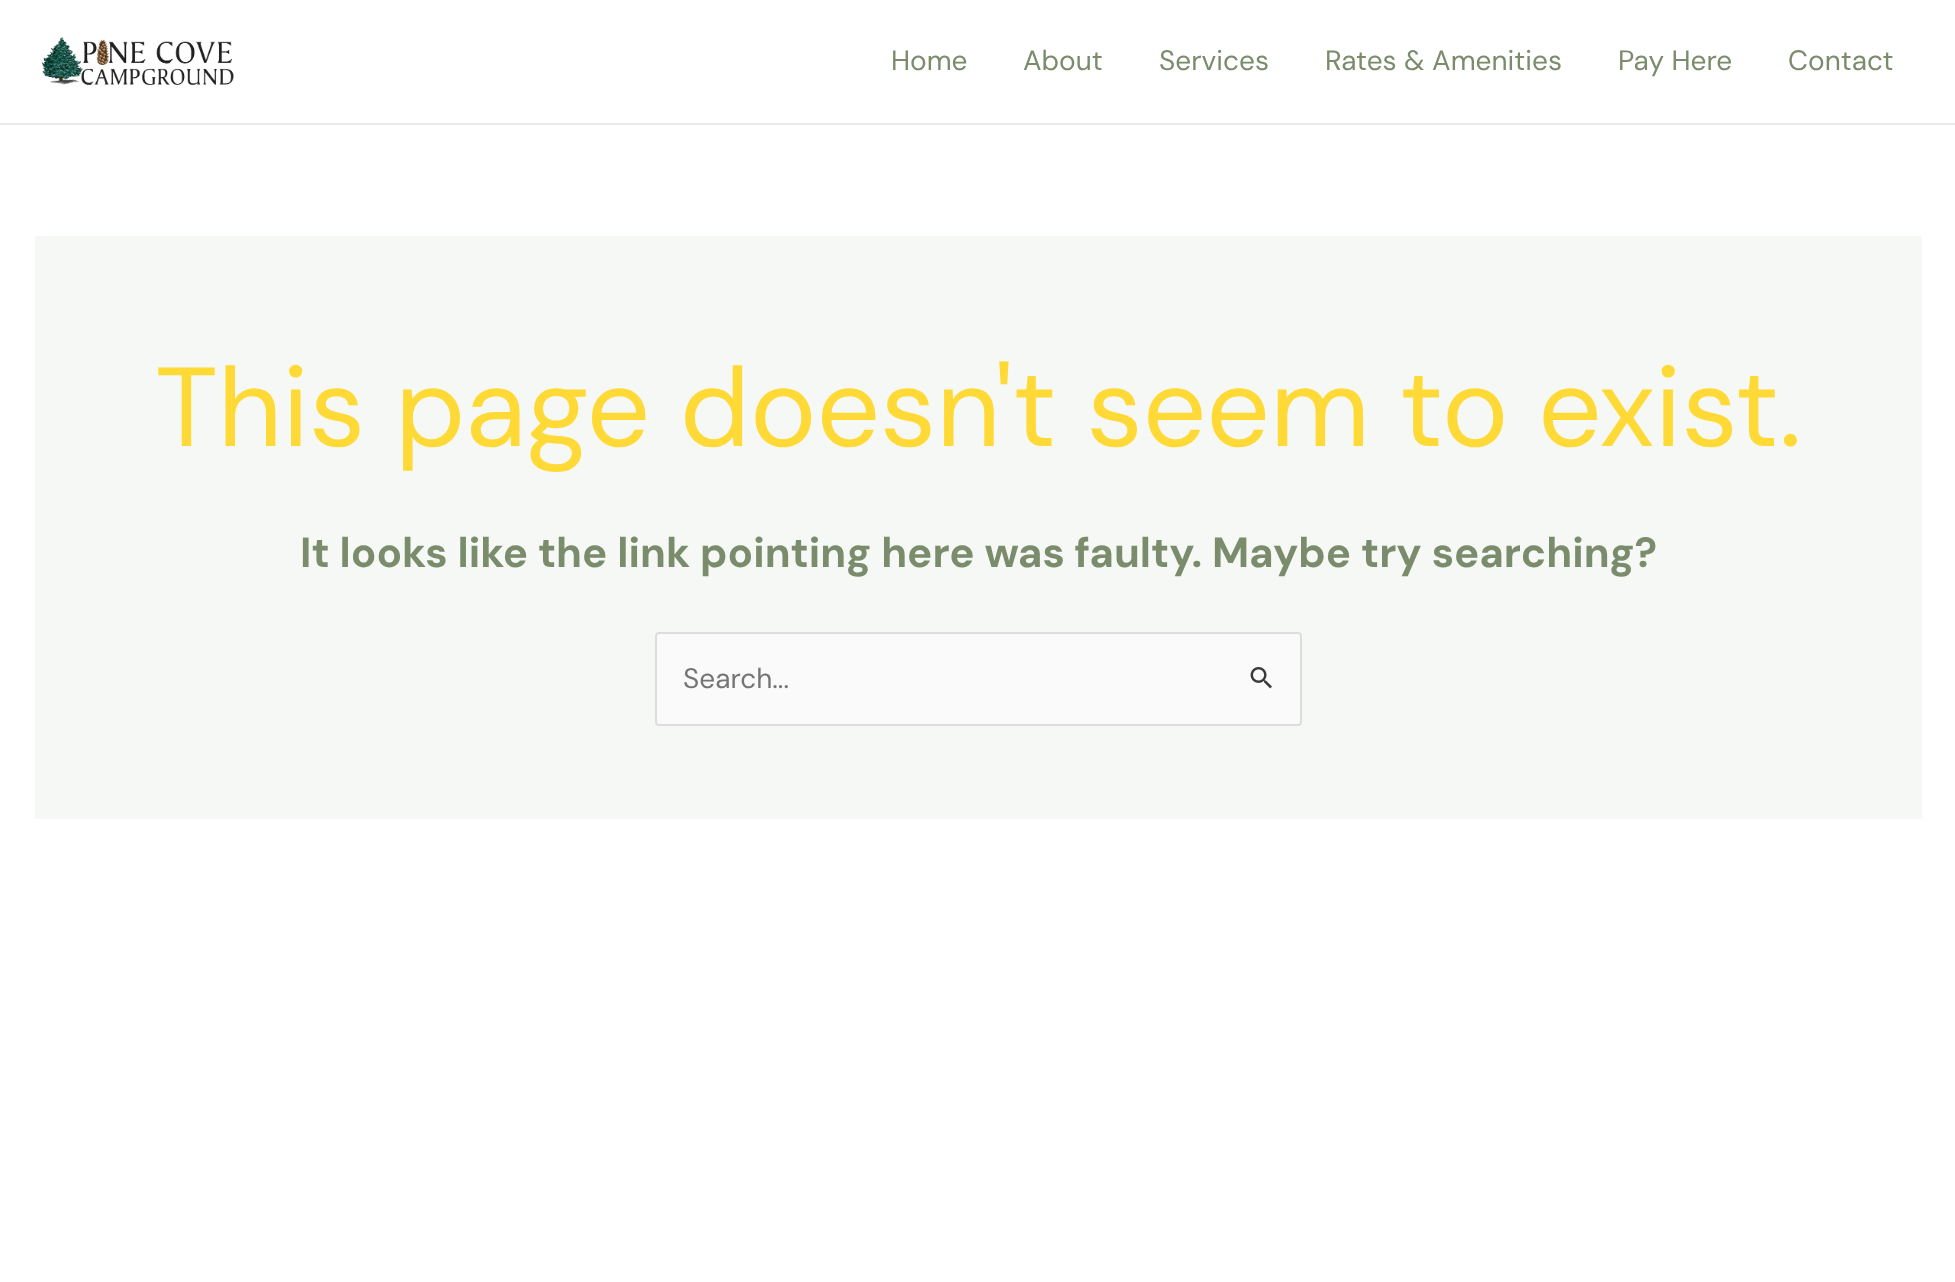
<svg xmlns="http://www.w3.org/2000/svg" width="1955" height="1282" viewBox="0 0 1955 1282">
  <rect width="100%" height="100%" fill="rgb(255,255,255)"/>
  <rect x="0" y="123" width="1955" height="2" fill="rgb(234,234,234)"/>
  <image x="41" y="37" width="193" height="49" href="pic1.png"/>
  <g font-family="DM Sans" font-size="28" fill="rgb(123,140,109)">
    <text x="891" y="70">Home</text>
    <text x="1023" y="70">About</text>
    <text x="1159" y="70">Services</text>
    <text x="1325" y="70">Rates &amp; Amenities</text>
    <text x="1618" y="70">Pay Here</text>
    <text x="1788" y="70">Contact</text>
  </g>
  <rect x="35" y="236" width="1887" height="583" fill="rgb(246,248,245)"/>
  <text x="155" y="446" font-family="DM Sans" font-size="112" fill="rgb(255,217,54)">This page doesn't seem to exist.</text>
  <text x="300" y="567" font-family="DM Sans" font-size="42" font-weight="bold" fill="rgb(123,140,109)">It looks like the link pointing here was faulty. Maybe try searching?</text>
  <rect x="656" y="633" width="645" height="92" rx="3" fill="rgb(250,250,250)" stroke="rgb(221,221,221)" stroke-width="2"/>
  <text x="683" y="688" font-family="DM Sans" font-size="28" fill="rgb(117,117,117)">Search...</text>
  <image x="1250" y="667" width="22" height="22" href="pic2.png"/>
</svg>
